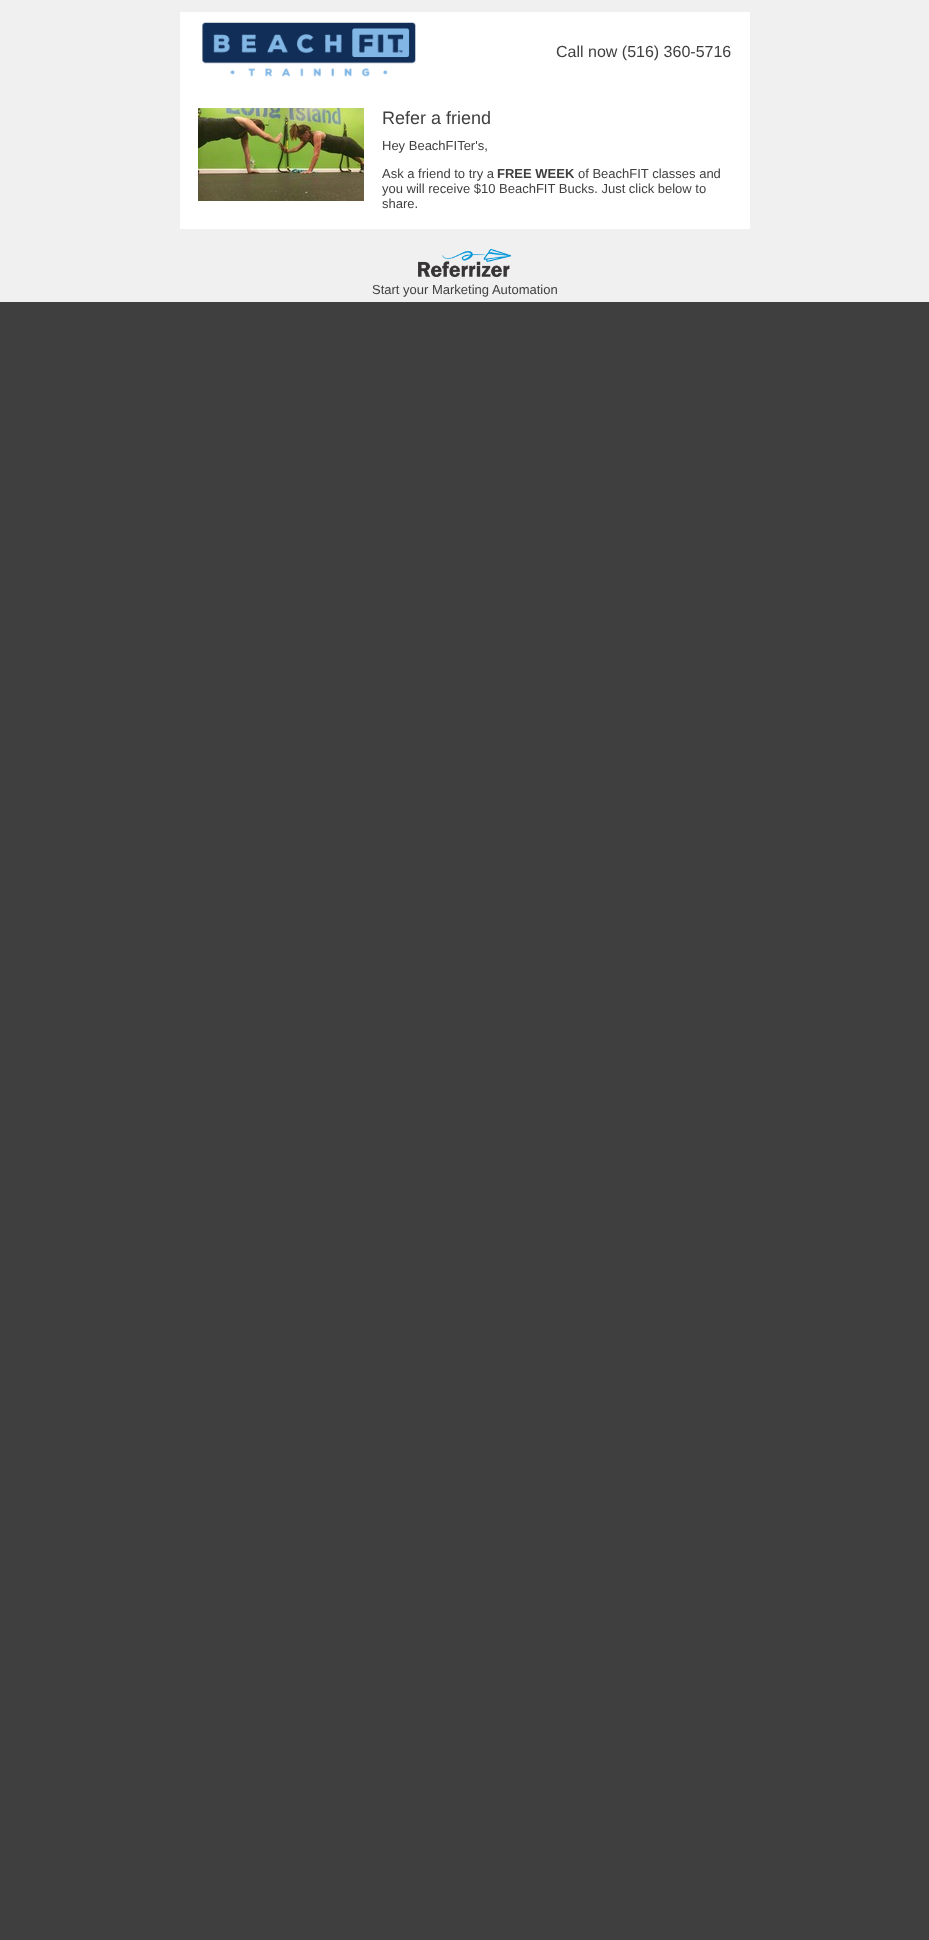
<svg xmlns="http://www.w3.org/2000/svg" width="929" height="1940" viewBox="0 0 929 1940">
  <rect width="100%" height="100%" fill="rgb(63,63,63)"/>
  <rect x="0" y="0" width="929" height="302" fill="rgb(240,240,240)"/>
  <rect x="180" y="12" width="570" height="217" fill="rgb(255,255,255)"/>
  <image x="202" y="22" width="214" height="55" href="pic1.png"/>
  <text x="556" y="57" font-family="Liberation Sans" font-size="16" fill="rgb(63,63,63)">Call now (516) 360-5716</text>
  <image x="198" y="108" width="166" height="93" href="pic2.png"/>
  <text x="382" y="124" font-family="Liberation Sans" font-size="18" fill="rgb(63,63,63)">Refer a friend</text>
  <g font-family="Liberation Sans" font-size="13" fill="rgb(63,63,63)">
    <text x="382" y="150">Hey BeachFITer's,</text>
    <text x="382" y="178">Ask a friend to try a</text>
  </g>
  <text x="497" y="178" font-family="Liberation Sans" font-size="13" font-weight="bold" fill="rgb(63,63,63)">FREE WEEK</text>
  <g font-family="Liberation Sans" font-size="13" fill="rgb(63,63,63)">
    <text x="578" y="178">of BeachFIT classes and</text>
    <text>
      <tspan x="382" y="193">you will receive $10 BeachFIT Bucks. Just click below to</tspan>
      <tspan x="382" y="208">share.</tspan>
    </text>
  </g>
  <image x="418" y="249" width="93" height="28" href="pic3.png"/>
  <text x="372" y="294" font-family="Liberation Sans" font-size="13" fill="rgb(63,63,63)">Start your Marketing Automation</text>
</svg>
